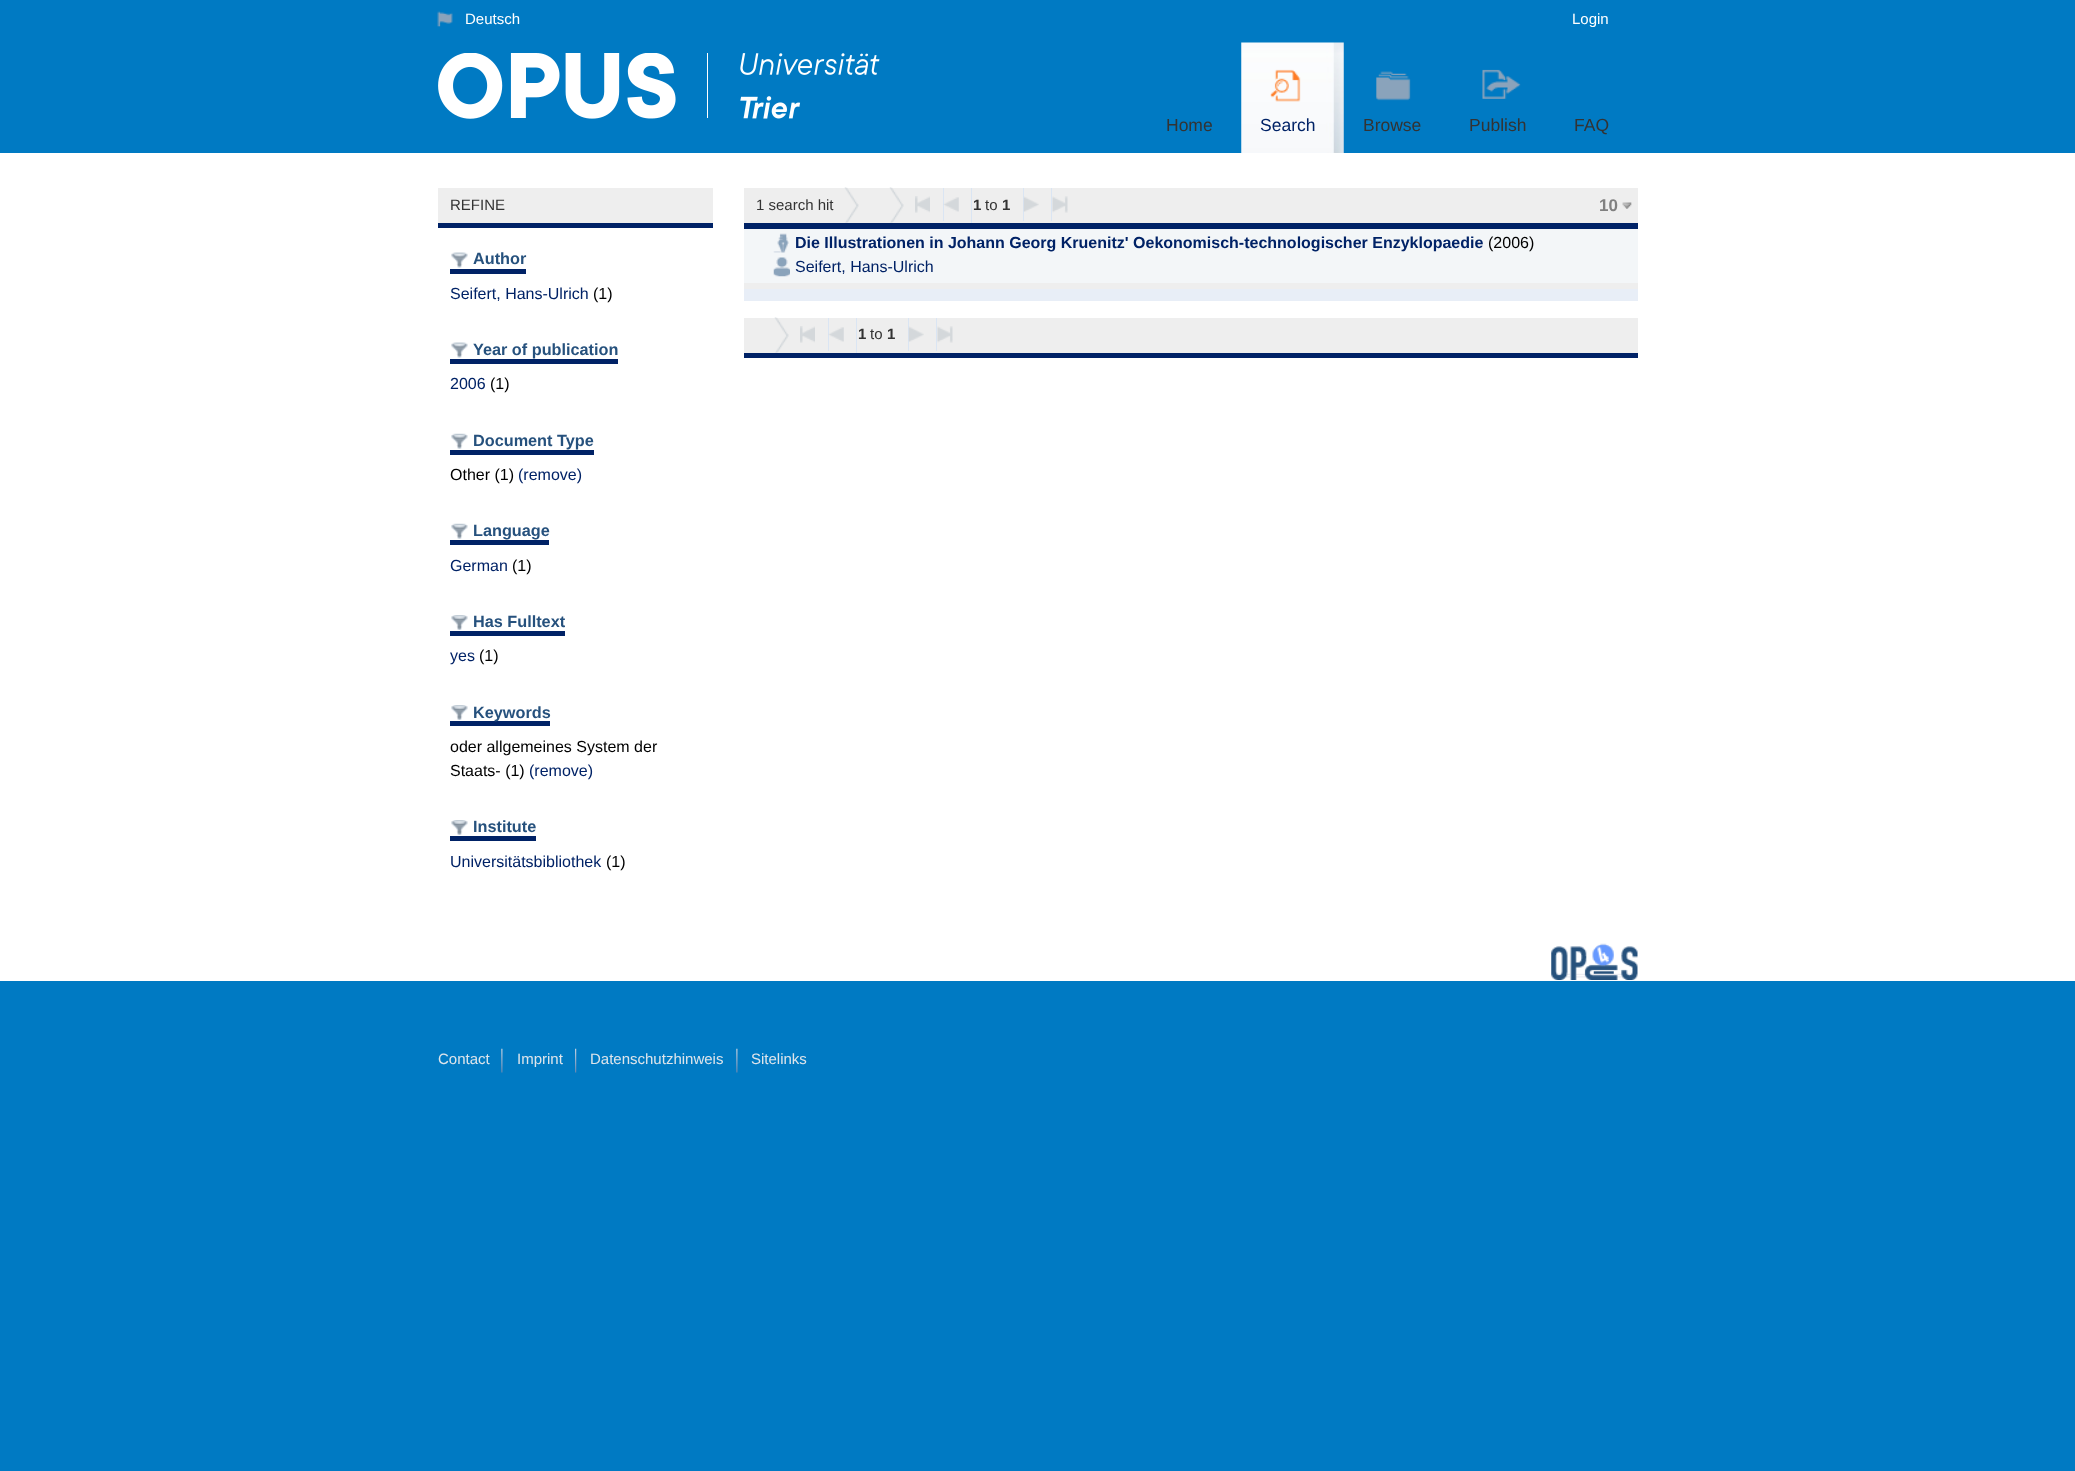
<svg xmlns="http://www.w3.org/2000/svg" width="2075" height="1471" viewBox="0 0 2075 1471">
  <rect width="100%" height="100%" fill="rgb(0,122,195)"/>
  <image x="437" y="11" width="16" height="16" href="pic1.png"/>
  <g font-family="Liberation Sans" font-size="15" fill="rgb(255,255,255)">
    <text x="465" y="24">Deutsch</text>
    <text x="1572" y="24">Login</text>
  </g>
  <image x="438" y="53" width="442" height="66" href="pic2.png"/>
  <text x="1166" y="131" font-family="Liberation Sans" font-size="17.5" fill="rgb(51,51,51)">Home</text>
  <image x="1241" y="42" width="103" height="111" href="pic3.png"/>
  <image x="1270" y="69" width="31" height="33" href="pic4.png"/>
  <text x="1260" y="131" font-family="Liberation Sans" font-size="17.5" fill="rgb(0,34,102)">Search</text>
  <image x="1376" y="71" width="35" height="30" href="pic5.png"/>
  <text x="1363" y="131" font-family="Liberation Sans" font-size="17.5" fill="rgb(51,51,51)">Browse</text>
  <image x="1482" y="69" width="39" height="30" href="pic6.png"/>
  <g font-family="Liberation Sans" font-size="17.5" fill="rgb(51,51,51)">
    <text x="1469" y="131">Publish</text>
    <text x="1574" y="131">FAQ</text>
  </g>
  <rect x="0" y="153" width="2075" height="828" fill="rgb(255,255,255)"/>
  <rect x="438" y="188" width="275" height="35" fill="rgb(238,238,238)"/>
  <rect x="438" y="223" width="275" height="5" fill="rgb(0,34,102)"/>
  <text x="450" y="210" font-family="Liberation Sans" font-size="15" fill="rgb(51,51,51)">REFINE</text>
  <image x="451" y="252" width="17" height="16" href="pic7.png"/>
  <rect x="450" y="269" width="76" height="5" fill="rgb(0,34,102)"/>
  <text x="473" y="264" font-family="Liberation Sans" font-size="16.25" font-weight="bold" fill="rgb(38,81,125)">Author</text>
  <text x="450" y="299" font-family="Liberation Sans" font-size="16" fill="rgb(0,34,102)">Seifert, Hans-Ulrich</text>
  <text x="593" y="299" font-family="Liberation Sans" font-size="16" fill="rgb(0,0,0)">(1)</text>
  <image x="451" y="342" width="17" height="16" href="pic7.png"/>
  <rect x="450" y="359" width="168" height="5" fill="rgb(0,34,102)"/>
  <text x="473" y="355" font-family="Liberation Sans" font-size="16.25" font-weight="bold" fill="rgb(38,81,125)">Year of publication</text>
  <text x="450" y="389" font-family="Liberation Sans" font-size="16" fill="rgb(0,34,102)">2006</text>
  <text x="490" y="389" font-family="Liberation Sans" font-size="16" fill="rgb(0,0,0)">(1)</text>
  <image x="451" y="433" width="17" height="16" href="pic8.png"/>
  <rect x="450" y="450" width="144" height="5" fill="rgb(0,34,102)"/>
  <text x="473" y="446" font-family="Liberation Sans" font-size="16.25" font-weight="bold" fill="rgb(38,81,125)">Document Type</text>
  <text x="450" y="480" font-family="Liberation Sans" font-size="16" fill="rgb(0,0,0)">Other (1)</text>
  <text x="518" y="480" font-family="Liberation Sans" font-size="16" fill="rgb(0,34,102)">(remove)</text>
  <image x="451" y="523" width="17" height="16" href="pic8.png"/>
  <rect x="450" y="540" width="99" height="5" fill="rgb(0,34,102)"/>
  <text x="473" y="536" font-family="Liberation Sans" font-size="16.25" font-weight="bold" fill="rgb(38,81,125)">Language</text>
  <text x="450" y="571" font-family="Liberation Sans" font-size="16" fill="rgb(0,34,102)">German</text>
  <text x="512" y="571" font-family="Liberation Sans" font-size="16" fill="rgb(0,0,0)">(1)</text>
  <image x="451" y="615" width="17" height="15" href="pic9.png"/>
  <rect x="450" y="631" width="115" height="5" fill="rgb(0,34,102)"/>
  <text x="473" y="627" font-family="Liberation Sans" font-size="16.25" font-weight="bold" fill="rgb(38,81,125)">Has Fulltext</text>
  <text x="450" y="661" font-family="Liberation Sans" font-size="16" fill="rgb(0,34,102)">yes</text>
  <text x="479" y="661" font-family="Liberation Sans" font-size="16" fill="rgb(0,0,0)">(1)</text>
  <image x="451" y="705" width="17" height="15" href="pic9.png"/>
  <rect x="450" y="721" width="100" height="5" fill="rgb(0,34,102)"/>
  <text x="473" y="718" font-family="Liberation Sans" font-size="16.25" font-weight="bold" fill="rgb(38,81,125)">Keywords</text>
  <g font-family="Liberation Sans" font-size="16" fill="rgb(0,0,0)">
    <text>
      <tspan x="450" y="752">oder allgemeines System der</tspan>
      <tspan x="450" y="776">Staats- (1)</tspan>
    </text>
  </g>
  <text x="529" y="776" font-family="Liberation Sans" font-size="16" fill="rgb(0,34,102)">(remove)</text>
  <image x="451" y="820" width="17" height="15" href="pic9.png"/>
  <rect x="450" y="836" width="86" height="5" fill="rgb(0,34,102)"/>
  <text x="473" y="832" font-family="Liberation Sans" font-size="16.25" font-weight="bold" fill="rgb(38,81,125)">Institute</text>
  <text x="450" y="867" font-family="Liberation Sans" font-size="16" fill="rgb(0,34,102)">Universitätsbibliothek</text>
  <text x="606" y="867" font-family="Liberation Sans" font-size="16" fill="rgb(0,0,0)">(1)</text>
  <rect x="744" y="188" width="894" height="35" fill="rgb(238,238,238)"/>
  <rect x="744" y="223" width="894" height="6" fill="rgb(0,34,102)"/>
  <image x="844" y="187" width="15" height="36" href="pic10.png"/>
  <text x="756" y="210" font-family="Liberation Sans" font-size="15" fill="rgb(51,51,51)">1 search hit</text>
  <image x="889" y="187" width="15" height="36" href="pic11.png"/>
  <image x="915" y="196" width="15" height="17" href="pic12.png"/>
  <rect x="943" y="188" width="1" height="33" fill="rgb(218,229,243)"/>
  <image x="943" y="197" width="16" height="15" href="pic13.png"/>
  <rect x="971" y="188" width="1" height="35" fill="rgb(218,229,243)"/>
  <text x="973" y="210" font-family="Liberation Sans" font-size="15" font-weight="bold" fill="rgb(51,51,51)">1</text>
  <text x="985" y="210" font-family="Liberation Sans" font-size="15" fill="rgb(51,51,51)">to</text>
  <text x="1002" y="210" font-family="Liberation Sans" font-size="15" font-weight="bold" fill="rgb(51,51,51)">1</text>
  <rect x="1023" y="188" width="1" height="33" fill="rgb(218,229,243)"/>
  <image x="1023" y="196" width="16" height="16" href="pic14.png"/>
  <rect x="1051" y="188" width="1" height="33" fill="rgb(218,229,243)"/>
  <image x="1052" y="196" width="16" height="17" href="pic15.png"/>
  <image x="1622" y="202" width="10" height="7" href="pic16.png"/>
  <text x="1599" y="211" font-family="Liberation Sans" font-size="17" font-weight="bold" fill="rgb(128,128,128)">10</text>
  <rect x="744" y="283" width="894" height="6" fill="rgb(238,238,238)"/>
  <rect x="744" y="229" width="894" height="54" fill="rgb(243,246,248)"/>
  <image x="773" y="233" width="16" height="20" href="pic17.png"/>
  <text x="795" y="248" font-family="Liberation Sans" font-size="16" font-weight="bold" fill="rgb(0,34,102)">Die Illustrationen in Johann Georg Kruenitz' Oekonomisch-technologischer Enzyklopaedie</text>
  <text x="1488" y="248" font-family="Liberation Sans" font-size="16" fill="rgb(0,0,0)">(2006)</text>
  <image x="773" y="257" width="17" height="20" href="pic18.png"/>
  <text x="795" y="272" font-family="Liberation Sans" font-size="16" fill="rgb(0,34,102)">Seifert, Hans-Ulrich</text>
  <rect x="744" y="289" width="894" height="12" fill="rgb(232,238,247)"/>
  <rect x="744" y="318" width="894" height="35" fill="rgb(238,238,238)"/>
  <rect x="744" y="353" width="894" height="5" fill="rgb(0,34,102)"/>
  <image x="774" y="317" width="15" height="36" href="pic11.png"/>
  <image x="800" y="326" width="15" height="17" href="pic12.png"/>
  <rect x="828" y="318" width="1" height="33" fill="rgb(218,229,243)"/>
  <image x="828" y="327" width="16" height="15" href="pic13.png"/>
  <rect x="856" y="318" width="1" height="35" fill="rgb(218,229,243)"/>
  <text x="858" y="339" font-family="Liberation Sans" font-size="15" font-weight="bold" fill="rgb(51,51,51)">1</text>
  <text x="870" y="339" font-family="Liberation Sans" font-size="15" fill="rgb(51,51,51)">to</text>
  <text x="887" y="339" font-family="Liberation Sans" font-size="15" font-weight="bold" fill="rgb(51,51,51)">1</text>
  <rect x="908" y="318" width="1" height="33" fill="rgb(218,229,243)"/>
  <image x="908" y="326" width="16" height="16" href="pic19.png"/>
  <rect x="936" y="318" width="1" height="33" fill="rgb(218,229,243)"/>
  <image x="937" y="326" width="16" height="17" href="pic15.png"/>
  <image x="1551" y="943" width="87" height="37" href="pic20.png"/>
  <image x="501" y="1048" width="2" height="25" href="pic21.png"/>
  <text x="438" y="1064" font-family="Liberation Sans" font-size="15" fill="rgb(222,229,235)">Contact</text>
  <image x="575" y="1048" width="2" height="25" href="pic22.png"/>
  <text x="517" y="1064" font-family="Liberation Sans" font-size="15" fill="rgb(222,229,235)">Imprint</text>
  <image x="736" y="1048" width="2" height="25" href="pic21.png"/>
  <g font-family="Liberation Sans" font-size="15" fill="rgb(222,229,235)">
    <text x="590" y="1064">Datenschutzhinweis</text>
    <text x="751" y="1064">Sitelinks</text>
  </g>
</svg>
